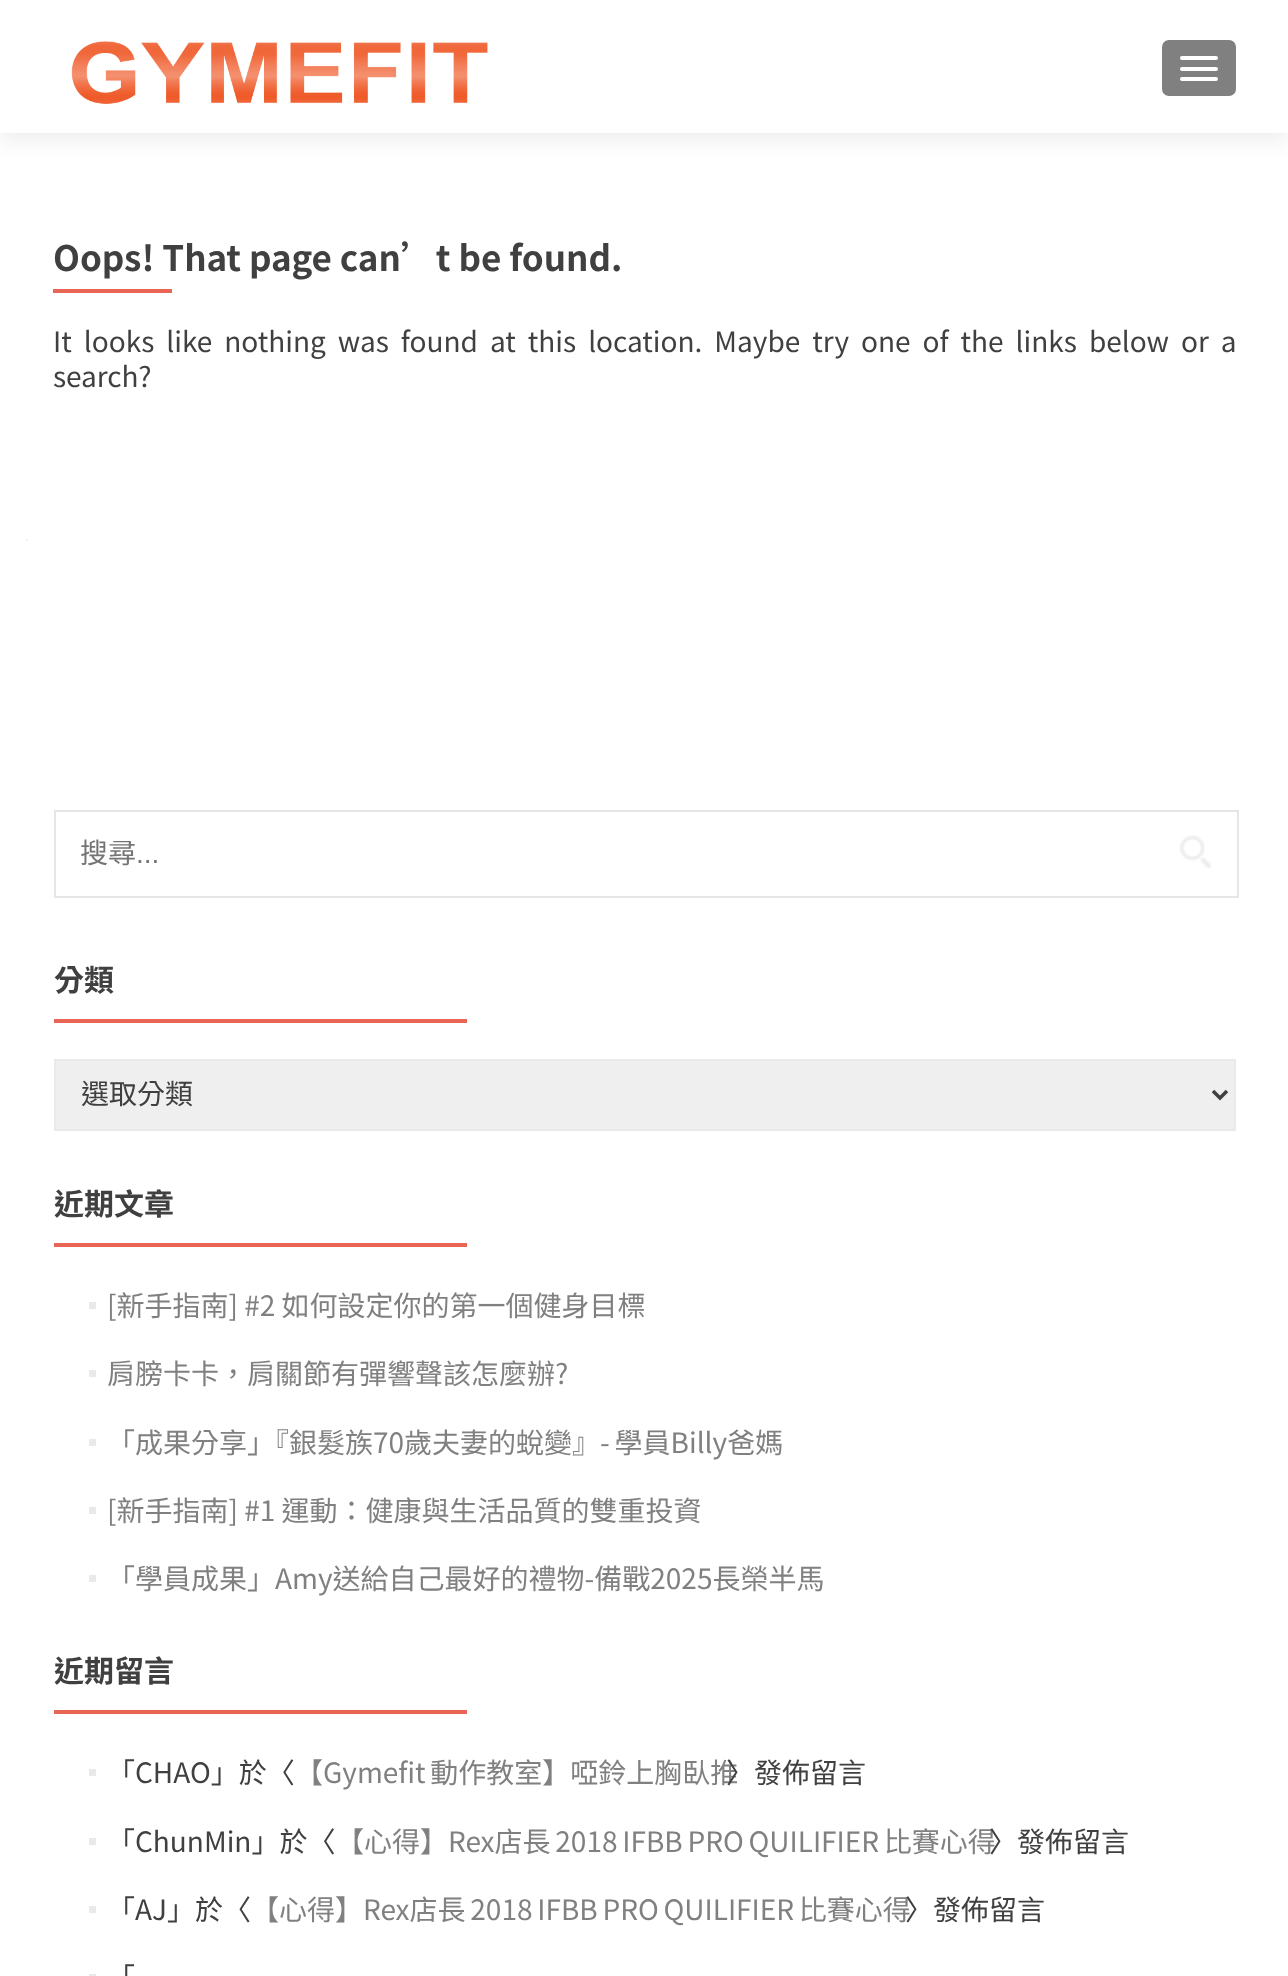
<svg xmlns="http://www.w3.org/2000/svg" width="1288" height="1976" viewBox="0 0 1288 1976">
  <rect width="100%" height="100%" fill="rgb(255,255,255)"/>
  <rect x="0" y="9" width="1288" height="133" fill="rgba(50,50,50,0.08)" filter="blur(9.5px)"/>
  <rect x="0" y="0" width="1288" height="133" fill="rgb(255,255,255)"/>
  <image x="71" y="41" width="417" height="64" href="pic1.png"/>
  <rect x="1162" y="40" width="74" height="56" rx="7" fill="rgb(128,128,128)"/>
  <rect x="1180" y="56" width="38" height="4" rx="2" fill="rgb(255,255,255)"/>
  <rect x="1180" y="67" width="38" height="4" rx="2" fill="rgb(255,255,255)"/>
  <rect x="1180" y="77" width="38" height="4" rx="2" fill="rgb(255,255,255)"/>
  <text x="53" y="271" font-family="Noto Sans TC" font-size="35" font-weight="bold" fill="rgb(64,64,64)">Oops! That page can’t be found.</text>
  <rect x="53" y="289" width="119" height="4" fill="rgb(233,102,86)"/>
  <g font-family="Noto Sans TC" font-size="28" fill="rgb(64,64,64)">
    <text>
      <tspan x="53" y="352" word-spacing="5.75">It looks like nothing was found at this location. Maybe try one of the links below or a</tspan>
      <tspan x="53" y="387">search?</tspan>
    </text>
  </g>
  <rect x="26" y="539" width="2" height="2" fill="rgb(242,242,242)"/>
  <rect x="55" y="811" width="1183" height="86" fill="none" stroke="rgb(230,230,230)" stroke-width="2"/>
  <text x="80" y="863" font-family="Noto Sans CJK TC" font-size="28" fill="rgb(117,117,117)">搜尋</text>
  <text x="136" y="863" font-family="Liberation Sans" font-size="28" fill="rgb(117,117,117)">...</text>
  <image x="1179" y="835" width="32" height="33" href="pic2.png"/>
  <text x="54" y="991" font-family="Noto Sans TC" font-size="30" font-weight="bold" fill="rgb(64,64,64)">分類</text>
  <rect x="54" y="1019" width="413" height="4" fill="rgb(233,102,86)"/>
  <rect x="55" y="1060" width="1180" height="70" fill="rgb(239,239,239)" stroke="rgb(233,233,233)" stroke-width="2"/>
  <path d="M1213 1091L1220 1098L1227 1091" fill="none" stroke="rgb(64,64,64)" stroke-width="3.5"/>
  <text x="81" y="1104" font-family="Noto Sans CJK TC" font-size="28" fill="rgb(64,64,64)">選取分類</text>
  <text x="54" y="1215" font-family="Noto Sans TC" font-size="30" font-weight="bold" fill="rgb(64,64,64)">近期文章</text>
  <rect x="54" y="1243" width="413" height="4" fill="rgb(233,102,86)"/>
  <rect x="89" y="1302" width="7" height="7" fill="rgb(233,233,233)"/>
  <text x="107" y="1316" font-family="Noto Sans TC" font-size="28" fill="rgb(128,128,128)">[新手指南] #2 如何設定你的第一個健身目標</text>
  <rect x="89" y="1370" width="7" height="7" fill="rgb(233,233,233)"/>
  <text x="107" y="1384" font-family="Noto Sans TC" font-size="28" fill="rgb(128,128,128)">肩膀卡卡，肩關節有彈響聲該怎麼辦?</text>
  <rect x="89" y="1439" width="7" height="7" fill="rgb(233,233,233)"/>
  <text x="107" y="1453" word-spacing="-1.5" font-family="Noto Sans TC" font-size="28" fill="rgb(128,128,128)">「成果分享」『銀髮族70歲夫妻的蛻變』- 學員Billy爸媽</text>
  <rect x="89" y="1507" width="7" height="7" fill="rgb(233,233,233)"/>
  <text x="107" y="1521" font-family="Noto Sans TC" font-size="28" fill="rgb(128,128,128)">[新手指南] #1 運動：健康與生活品質的雙重投資</text>
  <rect x="89" y="1575" width="7" height="7" fill="rgb(233,233,233)"/>
  <text x="107" y="1589" font-family="Noto Sans TC" font-size="28" fill="rgb(128,128,128)">「學員成果」Amy送給自己最好的禮物-備戰2025長榮半馬</text>
  <text x="54" y="1682" font-family="Noto Sans TC" font-size="30" font-weight="bold" fill="rgb(64,64,64)">近期留言</text>
  <rect x="54" y="1710" width="413" height="4" fill="rgb(233,102,86)"/>
  <rect x="89" y="1769" width="7" height="7" fill="rgb(233,233,233)"/>
  <text x="107" y="1783" font-family="Noto Sans TC" font-size="28" fill="rgb(64,64,64)">「CHAO」於〈</text>
  <text x="295" y="1783" word-spacing="-1.5" font-family="Noto Sans TC" font-size="28" fill="rgb(128,128,128)">【Gymefit 動作教室】啞鈴上胸臥推</text>
  <text x="726" y="1783" font-family="Noto Sans TC" font-size="28" fill="rgb(64,64,64)">〉發佈留言</text>
  <rect x="89" y="1838" width="7" height="7" fill="rgb(233,233,233)"/>
  <text x="107" y="1852" font-family="Noto Sans TC" font-size="28" fill="rgb(64,64,64)">「ChunMin」於〈</text>
  <text x="336" y="1852" word-spacing="-1.5" font-family="Noto Sans TC" font-size="28" fill="rgb(128,128,128)">【心得】Rex店長 2018 IFBB PRO QUILIFIER 比賽心得</text>
  <text x="989" y="1852" font-family="Noto Sans TC" font-size="28" fill="rgb(64,64,64)">〉發佈留言</text>
  <rect x="89" y="1906" width="7" height="7" fill="rgb(233,233,233)"/>
  <text x="107" y="1920" font-family="Noto Sans TC" font-size="28" fill="rgb(64,64,64)">「AJ」於〈</text>
  <text x="251" y="1920" word-spacing="-1.5" font-family="Noto Sans TC" font-size="28" fill="rgb(128,128,128)">【心得】Rex店長 2018 IFBB PRO QUILIFIER 比賽心得</text>
  <text x="905" y="1920" font-family="Noto Sans TC" font-size="28" fill="rgb(64,64,64)">〉發佈留言</text>
  <rect x="89" y="1974" width="7" height="2" fill="rgb(233,233,233)"/>
  <text x="107" y="1988" font-family="Noto Sans TC" font-size="28" fill="rgb(64,64,64)">「</text>
</svg>
